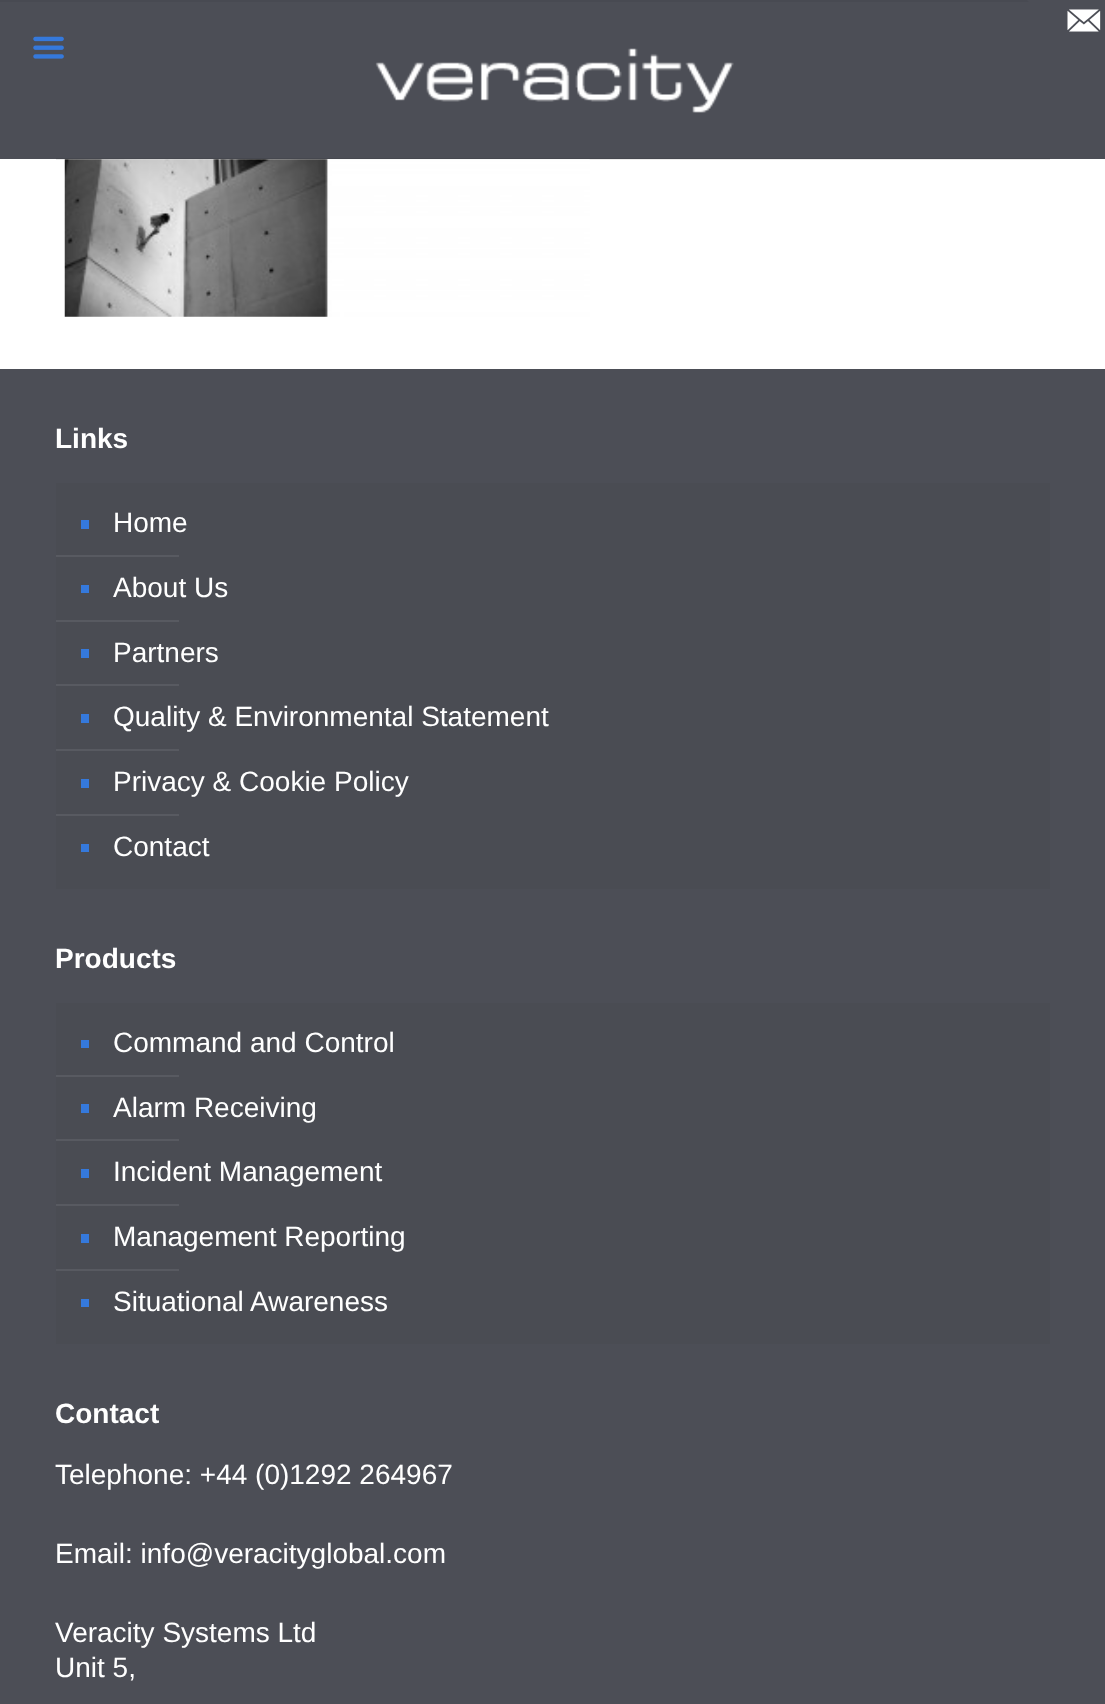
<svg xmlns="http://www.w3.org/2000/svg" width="1105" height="1704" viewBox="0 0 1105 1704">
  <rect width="100%" height="100%" fill="rgb(255,255,255)"/>
  <rect x="56" y="159" width="994" height="1" fill="rgb(235,235,235)"/>
  <rect x="0" y="0" width="1029" height="2" fill="rgb(72,74,82)"/>
  <rect x="0" y="2" width="1105" height="157" fill="rgb(76,78,86)"/>
  <path d="M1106 0V79L1027 0Z" fill="rgb(76,78,86)"/>
  <image x="1067" y="9" width="34" height="23" href="pic1.png"/>
  <rect x="56" y="158" width="994" height="1" fill="rgb(70,72,79)"/>
  <image x="33" y="36" width="31" height="23" href="pic2.png"/>
  <image x="375" y="48" width="359" height="65" href="pic3.png"/>
  <image x="64" y="159" width="526" height="158" href="pic4.png"/>
  <rect x="0" y="369" width="1105" height="1335" fill="rgb(76,78,86)"/>
  <text x="55" y="448" font-family="Liberation Sans" font-size="28" font-weight="bold" fill="rgb(255,255,255)">Links</text>
  <rect x="56" y="483" width="994" height="406" fill="rgb(74,76,83)"/>
  <rect x="81" y="520" width="8" height="9" fill="rgb(53,121,220)"/>
  <text x="113" y="532" font-family="Liberation Sans" font-size="28" fill="rgb(255,255,255)">Home</text>
  <rect x="56" y="555" width="123" height="2" fill="rgb(88,90,97)"/>
  <rect x="81" y="585" width="8" height="8" fill="rgb(53,121,220)"/>
  <text x="113" y="597" font-family="Liberation Sans" font-size="28" fill="rgb(255,255,255)">About Us</text>
  <rect x="56" y="620" width="123" height="2" fill="rgb(88,90,97)"/>
  <rect x="81" y="649" width="8" height="9" fill="rgb(53,121,220)"/>
  <text x="113" y="662" font-family="Liberation Sans" font-size="28" fill="rgb(255,255,255)">Partners</text>
  <rect x="56" y="684" width="123" height="2" fill="rgb(88,90,97)"/>
  <rect x="81" y="714" width="8" height="9" fill="rgb(53,121,220)"/>
  <text x="113" y="726" font-family="Liberation Sans" font-size="28" fill="rgb(255,255,255)">Quality &amp; Environmental Statement</text>
  <rect x="56" y="749" width="123" height="2" fill="rgb(88,90,97)"/>
  <rect x="81" y="779" width="8" height="9" fill="rgb(53,121,220)"/>
  <text x="113" y="791" font-family="Liberation Sans" font-size="28" fill="rgb(255,255,255)">Privacy &amp; Cookie Policy</text>
  <rect x="56" y="814" width="123" height="2" fill="rgb(88,90,97)"/>
  <rect x="81" y="844" width="8" height="8" fill="rgb(53,121,220)"/>
  <text x="113" y="856" font-family="Liberation Sans" font-size="28" fill="rgb(255,255,255)">Contact</text>
  <text x="55" y="968" font-family="Liberation Sans" font-size="28" font-weight="bold" fill="rgb(255,255,255)">Products</text>
  <rect x="56" y="1003" width="994" height="341" fill="rgb(74,76,83)"/>
  <rect x="81" y="1040" width="8" height="8" fill="rgb(53,121,220)"/>
  <text x="113" y="1052" font-family="Liberation Sans" font-size="28" fill="rgb(255,255,255)">Command and Control</text>
  <rect x="56" y="1075" width="123" height="2" fill="rgb(88,90,97)"/>
  <rect x="81" y="1104" width="8" height="9" fill="rgb(53,121,220)"/>
  <text x="113" y="1117" font-family="Liberation Sans" font-size="28" fill="rgb(255,255,255)">Alarm Receiving</text>
  <rect x="56" y="1139" width="123" height="2" fill="rgb(88,90,97)"/>
  <rect x="81" y="1169" width="8" height="9" fill="rgb(53,121,220)"/>
  <text x="113" y="1181" font-family="Liberation Sans" font-size="28" fill="rgb(255,255,255)">Incident Management</text>
  <rect x="56" y="1204" width="123" height="2" fill="rgb(88,90,97)"/>
  <rect x="81" y="1234" width="8" height="9" fill="rgb(53,121,220)"/>
  <text x="113" y="1246" font-family="Liberation Sans" font-size="28" fill="rgb(255,255,255)">Management Reporting</text>
  <rect x="56" y="1269" width="123" height="2" fill="rgb(88,90,97)"/>
  <rect x="81" y="1299" width="8" height="8" fill="rgb(53,121,220)"/>
  <text x="113" y="1311" font-family="Liberation Sans" font-size="28" fill="rgb(255,255,255)">Situational Awareness</text>
  <text x="55" y="1423" font-family="Liberation Sans" font-size="28" font-weight="bold" fill="rgb(255,255,255)">Contact</text>
  <g font-family="Liberation Sans" font-size="28" fill="rgb(255,255,255)">
    <text x="55" y="1484">Telephone: +44 (0)1292 264967</text>
    <text x="55" y="1563">Email: info@veracityglobal.com</text>
    <text>
      <tspan x="55" y="1642">Veracity Systems Ltd</tspan>
      <tspan x="55" y="1677">Unit 5,</tspan>
    </text>
  </g>
</svg>
